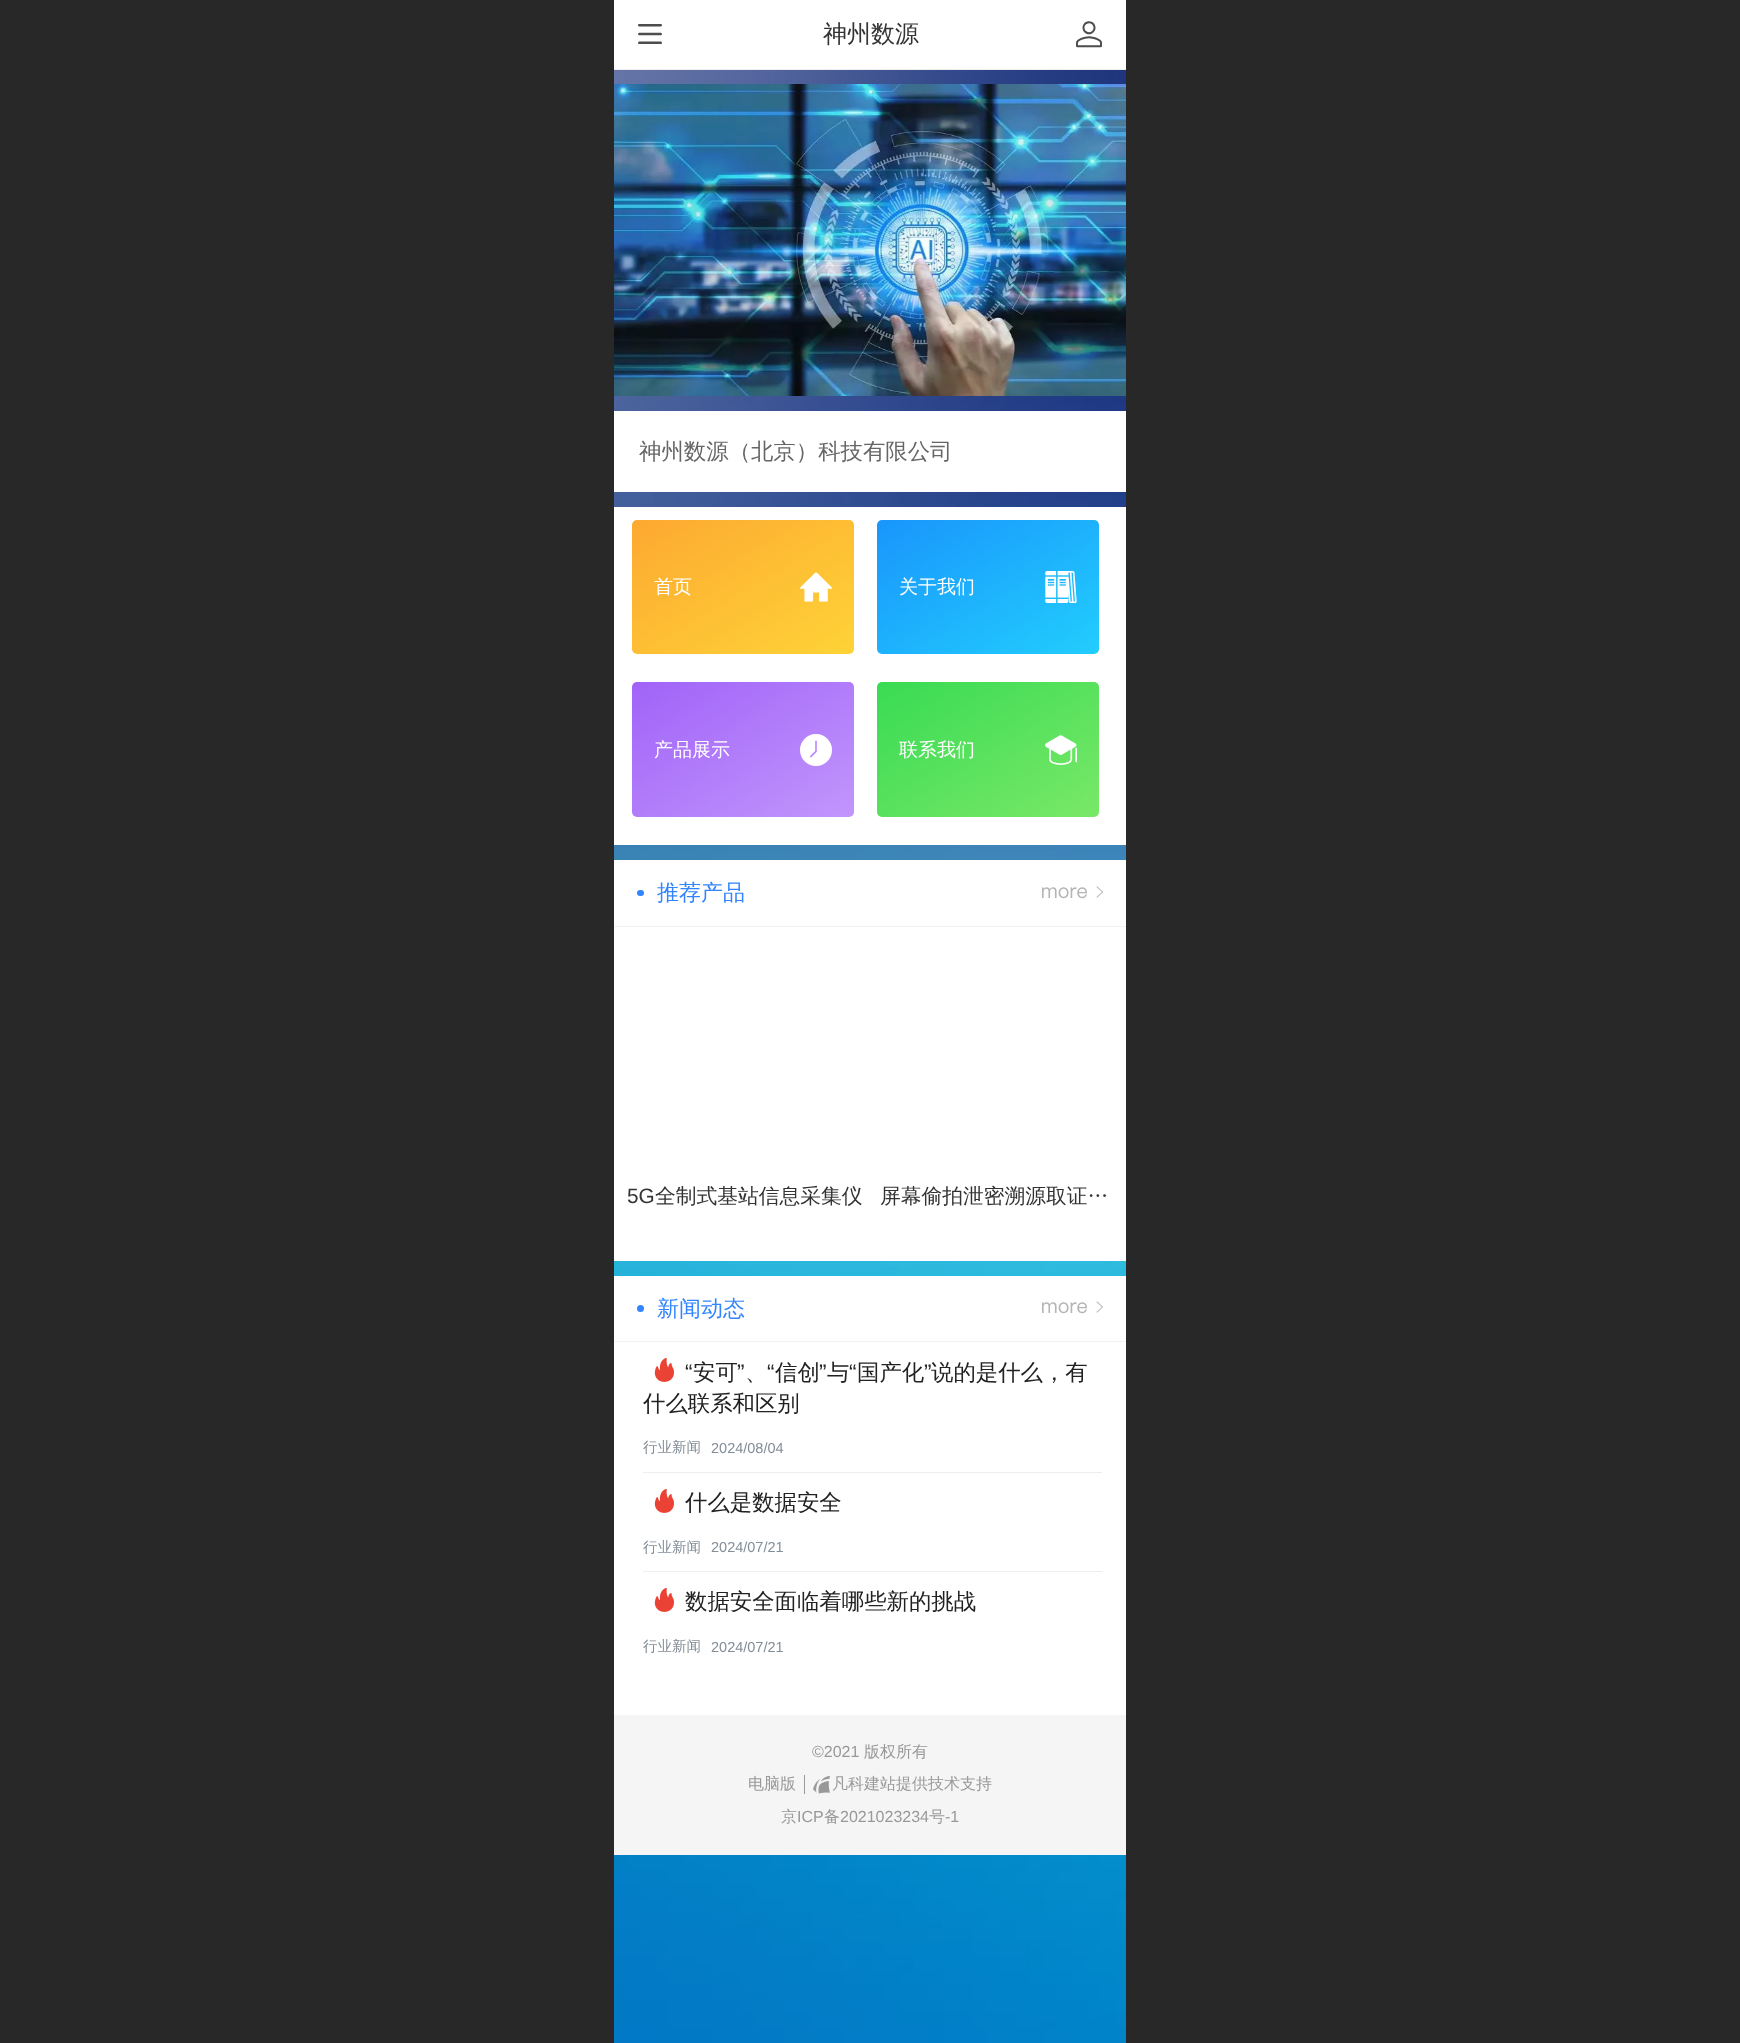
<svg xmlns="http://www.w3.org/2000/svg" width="1740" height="2043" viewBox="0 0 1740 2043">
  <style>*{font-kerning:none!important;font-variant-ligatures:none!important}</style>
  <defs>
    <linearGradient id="g1" gradientUnits="userSpaceOnUse" x1="684" y1="489" x2="802" y2="685"><stop offset="0" stop-color="rgb(253,169,49)"/><stop offset="1" stop-color="rgb(254,211,55)"/></linearGradient>
    <linearGradient id="g2" gradientUnits="userSpaceOnUse" x1="929" y1="489" x2="1047" y2="685"><stop offset="0" stop-color="rgb(25,150,252)"/><stop offset="1" stop-color="rgb(34,205,253)"/></linearGradient>
    <linearGradient id="g3" gradientUnits="userSpaceOnUse" x1="683" y1="651" x2="803" y2="848"><stop offset="0" stop-color="rgb(161,99,248)"/><stop offset="1" stop-color="rgb(193,150,252)"/></linearGradient>
    <linearGradient id="g4" gradientUnits="userSpaceOnUse" x1="928" y1="651" x2="1048" y2="848"><stop offset="0" stop-color="rgb(57,219,83)"/><stop offset="1" stop-color="rgb(121,232,104)"/></linearGradient>
  </defs>
  <rect width="100%" height="100%" fill="rgb(255,255,255)"/>
  <rect x="0" y="0" width="614" height="2043" fill="rgb(40,40,40)"/>
  <text x="638" y="44" font-family="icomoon" font-size="24" fill="rgb(77,77,77)">򰌲</text>
  <rect x="614" y="69" width="512" height="1" fill="rgb(238,238,238)"/>
  <text x="823" y="42" font-family="WenQuanYi Zen Hei" font-size="24" font-weight="500" fill="rgb(51,51,51)">神州数源</text>
  <text x="1076" y="45" font-family="icomoon" font-size="26" fill="rgb(77,77,77)">򰊈</text>
  <image x="614" y="70" width="512" height="1973" href="pic1.png"/>
  <image x="614" y="84" width="512" height="312" href="pic2.png"/>
  <rect x="614" y="411" width="512" height="81" fill="rgb(255,255,255)"/>
  <text x="639" y="459" font-family="WenQuanYi Zen Hei" font-size="22.4" font-weight="500" fill="rgb(102,102,102)">神州数源（北京）科技有限公司</text>
  <rect x="614" y="507" width="512" height="338" fill="rgb(255,255,255)"/>
  <rect x="632" y="520" width="222" height="134" rx="5" fill="url(#g1)"/>
  <text x="654" y="593" font-family="WenQuanYi Zen Hei" font-size="19" font-weight="500" fill="rgb(255,255,255)">首页</text>
  <text x="800" y="601" font-family="icomoon" font-size="32" fill="rgb(255,255,255)">򠡁</text>
  <rect x="877" y="520" width="222" height="134" rx="5" fill="url(#g2)"/>
  <text x="899" y="593" font-family="WenQuanYi Zen Hei" font-size="19" font-weight="500" fill="rgb(255,255,255)">关于我们</text>
  <text x="1045" y="601" font-family="icomoon" font-size="32" fill="rgb(255,255,255)">򠖑</text>
  <rect x="632" y="682" width="222" height="135" rx="5" fill="url(#g3)"/>
  <text x="654" y="756" font-family="WenQuanYi Zen Hei" font-size="19" font-weight="500" fill="rgb(255,255,255)">产品展示</text>
  <text x="800" y="764" font-family="icomoon" font-size="32" fill="rgb(255,255,255)">򠄅</text>
  <rect x="877" y="682" width="222" height="135" rx="5" fill="url(#g4)"/>
  <text x="899" y="756" font-family="WenQuanYi Zen Hei" font-size="19" font-weight="500" fill="rgb(255,255,255)">联系我们</text>
  <text x="1045" y="764" font-family="icomoon" font-size="32" fill="rgb(255,255,255)">򠑖</text>
  <rect x="614" y="860" width="512" height="66" fill="rgb(255,255,255)"/>
  <rect x="614" y="926" width="512" height="1" fill="rgb(243,243,243)"/>
  <rect x="637" y="890" width="7" height="6" rx="3" fill="rgb(50,133,255)"/>
  <text x="657" y="900" font-family="WenQuanYi Zen Hei" font-size="22" font-weight="500" fill="rgb(50,133,255)">推荐产品</text>
  <text x="1042" y="919" font-family="icomoon" font-size="61" fill="rgb(181,181,181)">򡂂</text>
  <rect x="614" y="927" width="512" height="334" fill="rgb(255,255,255)"/>
  <text x="627" y="1203" font-family="Liberation Sans" font-size="20.75" fill="rgb(51,51,51)">5G</text>
  <g font-family="WenQuanYi Zen Hei" font-size="20.75" font-weight="500" fill="rgb(51,51,51)">
    <text x="655" y="1203">全制式基站信息采集仪</text>
    <text x="880" y="1203">屏幕偷拍泄密溯源取证…</text>
  </g>
  <rect x="614" y="1276" width="512" height="65" fill="rgb(255,255,255)"/>
  <rect x="614" y="1341" width="512" height="1" fill="rgb(243,243,243)"/>
  <circle cx="640.5" cy="1308.5" r="3.5" fill="rgb(50,133,255)"/>
  <text x="657" y="1316" font-family="WenQuanYi Zen Hei" font-size="22" font-weight="500" fill="rgb(50,133,255)">新闻动态</text>
  <text x="1042" y="1334" font-family="icomoon" font-size="61" fill="rgb(181,181,181)">򡂂</text>
  <rect x="614" y="1342" width="512" height="373" fill="rgb(255,255,255)"/>
  <image x="654" y="1358" width="20" height="24" href="pic3.png"/>
  <text x="685" y="1380" font-family="Liberation Sans" font-size="22.4" fill="rgb(34,34,34)">“</text>
  <text x="693" y="1380" font-family="WenQuanYi Zen Hei" font-size="22.4" font-weight="500" fill="rgb(34,34,34)">安可</text>
  <g font-family="Liberation Sans" font-size="22.4" fill="rgb(34,34,34)">
    <text x="737" y="1380">”</text>
    <text x="767" y="1380">“</text>
  </g>
  <text x="775" y="1380" font-family="WenQuanYi Zen Hei" font-size="22.4" font-weight="500" fill="rgb(34,34,34)">信创</text>
  <text x="819" y="1380" font-family="Liberation Sans" font-size="22.4" fill="rgb(34,34,34)">”</text>
  <text x="827" y="1380" font-family="WenQuanYi Zen Hei" font-size="22.4" font-weight="500" fill="rgb(34,34,34)">与</text>
  <text x="849" y="1380" font-family="Liberation Sans" font-size="22.4" fill="rgb(34,34,34)">“</text>
  <text x="857" y="1380" font-family="WenQuanYi Zen Hei" font-size="22.4" font-weight="500" fill="rgb(34,34,34)">国产化</text>
  <text x="924" y="1380" font-family="Liberation Sans" font-size="22.4" fill="rgb(34,34,34)">”</text>
  <g font-family="WenQuanYi Zen Hei" font-size="22.4" font-weight="500" fill="rgb(34,34,34)">
    <text x="931" y="1380">说的是什么，有</text>
    <text x="745" y="1380">、</text>
    <text x="643" y="1411">什么联系和区别</text>
  </g>
  <text x="643" y="1452" font-family="WenQuanYi Zen Hei" font-size="14.5" font-weight="500" fill="rgb(132,142,152)">行业新闻</text>
  <text x="711" y="1453" font-family="Liberation Sans" font-size="14.5" fill="rgb(132,142,152)">2024/08/04</text>
  <rect x="643" y="1472" width="459" height="1" fill="rgb(238,238,238)"/>
  <image x="654" y="1489" width="20" height="24" href="pic3.png"/>
  <text x="685" y="1510" font-family="WenQuanYi Zen Hei" font-size="22.4" font-weight="500" fill="rgb(34,34,34)">什么是数据安全</text>
  <text x="643" y="1552" font-family="WenQuanYi Zen Hei" font-size="14.5" font-weight="500" fill="rgb(132,142,152)">行业新闻</text>
  <text x="711" y="1552" font-family="Liberation Sans" font-size="14.5" fill="rgb(132,142,152)">2024/07/21</text>
  <rect x="643" y="1571" width="459" height="1" fill="rgb(238,238,238)"/>
  <image x="654" y="1588" width="20" height="24" href="pic3.png"/>
  <text x="685" y="1609" font-family="WenQuanYi Zen Hei" font-size="22.4" font-weight="500" fill="rgb(34,34,34)">数据安全面临着哪些新的挑战</text>
  <text x="643" y="1651" font-family="WenQuanYi Zen Hei" font-size="14.5" font-weight="500" fill="rgb(132,142,152)">行业新闻</text>
  <text x="711" y="1652" font-family="Liberation Sans" font-size="14.5" fill="rgb(132,142,152)">2024/07/21</text>
  <rect x="614" y="1715" width="512" height="140" fill="rgb(245,245,245)"/>
  <text x="812" y="1757" font-family="Liberation Sans" font-size="16" fill="rgb(153,153,153)">©2021</text>
  <g font-family="WenQuanYi Zen Hei" font-size="16" font-weight="500" fill="rgb(153,153,153)">
    <text x="864" y="1757">版权所有</text>
    <text x="748" y="1789">电脑版</text>
  </g>
  <rect x="804" y="1775" width="1" height="19" fill="rgb(153,153,153)"/>
  <image x="813" y="1776" width="17" height="18" href="pic4.png"/>
  <g font-family="WenQuanYi Zen Hei" font-size="16" font-weight="500" fill="rgb(153,153,153)">
    <text x="832" y="1789">凡科建站提供技术支持</text>
    <text x="781" y="1822">京</text>
  </g>
  <text x="797" y="1822" font-family="Liberation Sans" font-size="16" fill="rgb(153,153,153)">ICP</text>
  <text x="824" y="1822" font-family="WenQuanYi Zen Hei" font-size="16" font-weight="500" fill="rgb(153,153,153)">备</text>
  <text x="840" y="1822" font-family="Liberation Sans" font-size="16" fill="rgb(153,153,153)">2021023234</text>
  <text x="929" y="1822" font-family="WenQuanYi Zen Hei" font-size="16" font-weight="500" fill="rgb(153,153,153)">号</text>
  <text x="945" y="1822" font-family="Liberation Sans" font-size="16" fill="rgb(153,153,153)">-1</text>
  <rect x="1126" y="0" width="614" height="2043" fill="rgb(40,40,40)"/>
</svg>
